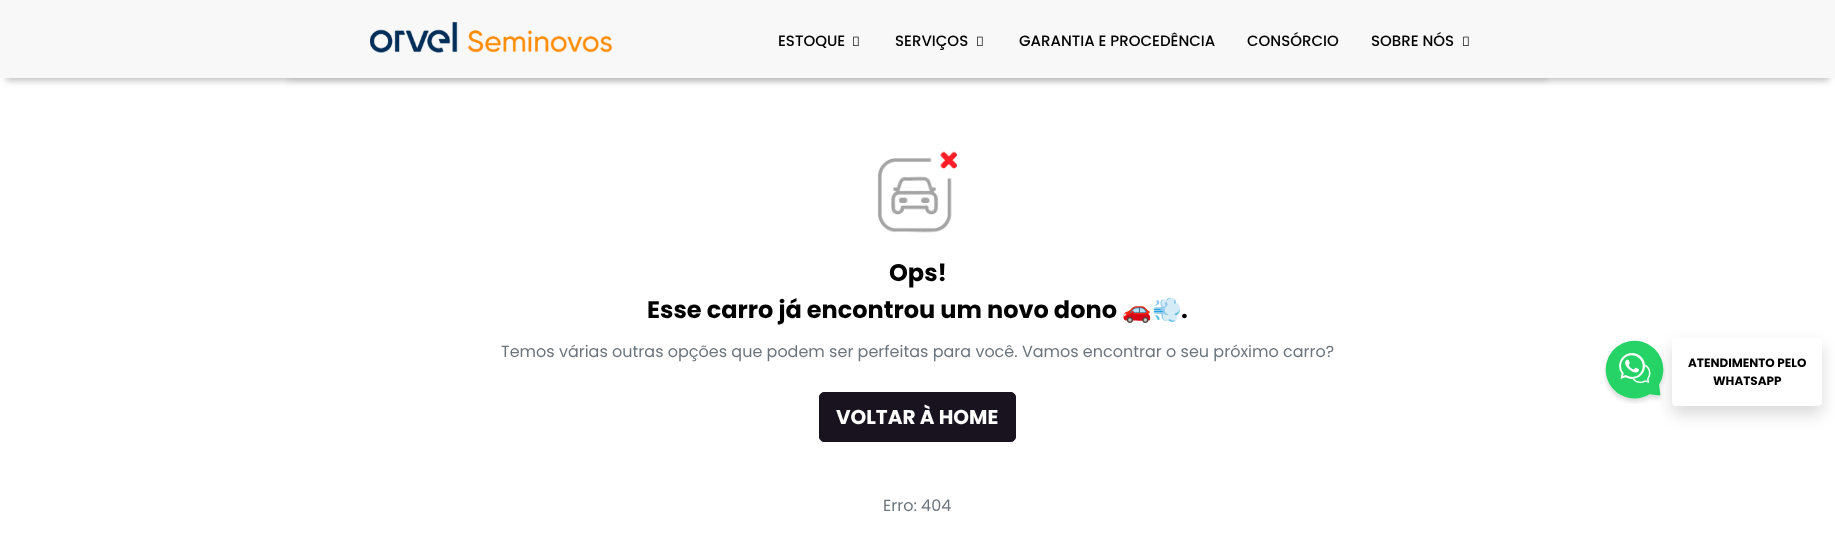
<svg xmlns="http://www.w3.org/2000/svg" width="1835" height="556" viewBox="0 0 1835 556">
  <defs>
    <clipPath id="clip1"><rect x="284" y="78" width="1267" height="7"/></clipPath>
  </defs>
  <rect width="100%" height="100%" fill="rgb(255,255,255)"/>
  <rect x="6" y="15" width="1823" height="66" fill="rgba(0,0,0,0.23)" filter="blur(3px)"/>
  <rect x="0" y="0" width="1835" height="78" fill="rgb(248,248,248)"/>
  <g clip-path="url(#clip1)">
    <rect x="288" y="15" width="1259" height="66" fill="rgba(137,137,137,0.23)" filter="blur(3px)"/>
  </g>
  <image x="370" y="22" width="243" height="31" href="pic1.png"/>
  <text x="778" y="46" font-family="Poppins" font-size="15" font-weight="500" fill="rgb(0,0,0)">ESTOQUE</text>
  <image x="853" y="36" width="6" height="10" href="pic2.png"/>
  <text x="895" y="46" font-family="Poppins" font-size="15" font-weight="500" fill="rgb(0,0,0)">SERVIÇOS</text>
  <image x="977" y="36" width="6" height="10" href="pic2.png"/>
  <g font-family="Poppins" font-size="15" font-weight="500" fill="rgb(0,0,0)">
    <text x="1019" y="46">GARANTIA E PROCEDÊNCIA</text>
    <text x="1247" y="46">CONSÓRCIO</text>
    <text x="1371" y="46">SOBRE NÓS</text>
  </g>
  <image x="1463" y="36" width="6" height="10" href="pic2.png"/>
  <image x="878" y="151" width="79" height="82" href="pic3.png"/>
  <g font-family="Poppins" font-size="24" font-weight="bold" fill="rgb(0,0,0)">
    <text x="889" y="281">Ops!</text>
    <text x="647" y="318">Esse carro já encontrou um novo dono</text>
  </g>
  <text x="1122" y="318" font-family="Noto Color Emoji" font-size="24" font-weight="bold" fill="rgb(0,0,0)">🚗💨</text>
  <text x="1181" y="318" font-family="Poppins" font-size="24" font-weight="bold" fill="rgb(0,0,0)">.</text>
  <text x="501" y="357" font-family="Poppins" font-size="16" fill="rgb(108,117,125)">Temos várias outras opções que podem ser perfeitas para você. Vamos encontrar o seu próximo carro?</text>
  <rect x="819.5" y="392.5" width="196" height="49" rx="4.5" fill="rgb(24,19,31)" stroke="rgb(24,19,31)"/>
  <text x="836" y="424" font-family="Poppins" font-size="20" font-weight="bold" fill="rgb(255,255,255)">VOLTAR À HOME</text>
  <text x="883" y="511" font-family="Poppins" font-size="16" fill="rgb(108,117,125)">Erro: 404</text>
  <image x="1603" y="340" width="63" height="64" href="pic4.png"/>
  <rect x="1672" y="346" width="150" height="68" rx="4" fill="rgba(0,0,0,0.15)" filter="blur(8px)"/>
  <rect x="1672" y="338" width="150" height="68" rx="4" fill="rgb(255,255,255)"/>
  <g font-family="Poppins" font-size="12" font-weight="bold" fill="rgb(0,0,0)">
    <text x="1688" y="367">ATENDIMENTO PELO</text>
    <text x="1713" y="385">WHATSAPP</text>
  </g>
</svg>
